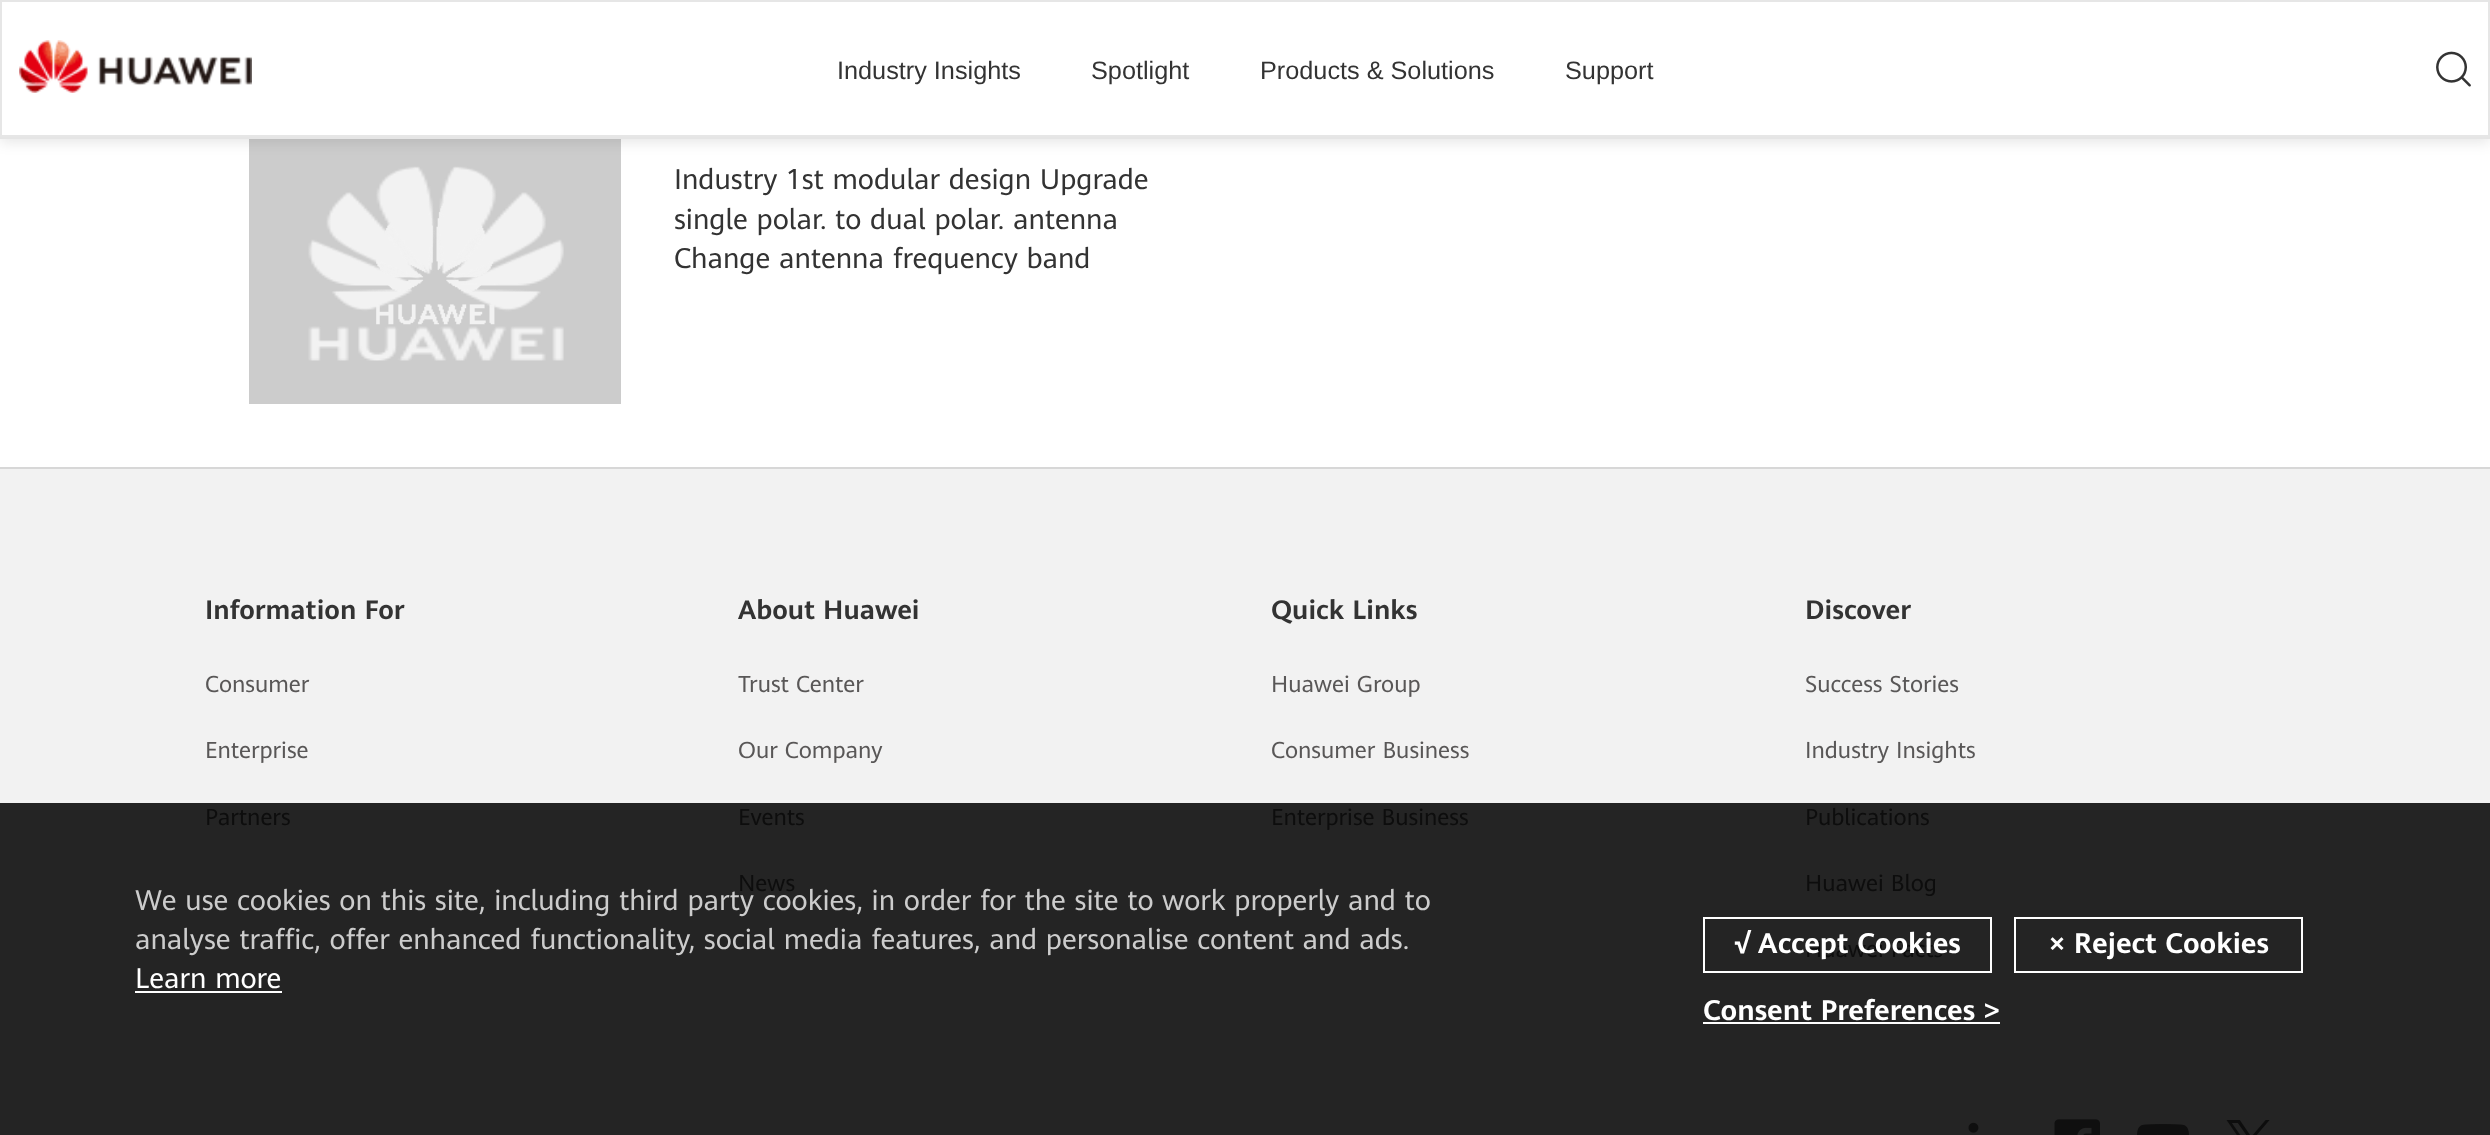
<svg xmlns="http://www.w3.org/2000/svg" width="2490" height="1135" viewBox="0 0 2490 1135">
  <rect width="100%" height="100%" fill="rgb(255,255,255)"/>
  <rect x="249" y="139" width="372" height="265" fill="rgb(204,204,204)"/>
  <rect x="0" y="4" width="2490" height="138" fill="rgba(0,0,0,0.1)" filter="blur(7px)"/>
  <rect x="0" y="137" width="2490" height="2" fill="rgb(229,229,229)"/>
  <rect x="1" y="1" width="2488" height="135" fill="rgb(255,255,255)" stroke="rgb(230,230,230)" stroke-width="2"/>
  <image x="19" y="40" width="233" height="53" href="pic1.png"/>
  <g font-family="Liberation Sans" font-size="25.25" fill="rgb(51,51,51)">
    <text x="837" y="79">Industry Insights</text>
    <text x="1091" y="79">Spotlight</text>
    <text x="1260" y="79">Products &amp; Solutions</text>
    <text x="1565" y="79">Support</text>
  </g>
  <image x="2436" y="51" width="35" height="36" href="pic2.png"/>
  <rect x="0" y="467" width="2490" height="2" fill="rgb(215,215,215)"/>
  <image x="376" y="203" width="119" height="122" href="pic3.png"/>
  <image x="308" y="166" width="256" height="195" href="pic4.png"/>
  <g font-family="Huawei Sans" font-size="28" fill="rgb(51,51,51)">
    <text>
      <tspan x="674" y="189">Industry 1st modular design Upgrade</tspan>
      <tspan x="674" y="229">single polar. to dual polar. antenna</tspan>
      <tspan x="674" y="268">Change antenna frequency band</tspan>
    </text>
  </g>
  <rect x="0" y="469" width="2490" height="334" fill="rgb(242,242,242)"/>
  <rect x="0" y="803" width="2490" height="332" fill="rgb(36,36,36)"/>
  <text x="205" y="619" font-family="Huawei Sans" font-size="26.25" font-weight="bold" fill="rgb(51,51,51)">Information For</text>
  <g font-family="Huawei Sans" font-size="22.75" fill="rgb(89,87,87)">
    <text x="205" y="692">Consumer</text>
    <text x="205" y="758">Enterprise</text>
  </g>
  <text x="205" y="825" font-family="Huawei Sans" font-size="22.75" fill="rgb(13,13,13)">Partners</text>
  <text x="738" y="619" font-family="Huawei Sans" font-size="26.25" font-weight="bold" fill="rgb(51,51,51)">About Huawei</text>
  <g font-family="Huawei Sans" font-size="22.75" fill="rgb(89,87,87)">
    <text x="738" y="692">Trust Center</text>
    <text x="738" y="758">Our Company</text>
  </g>
  <g font-family="Huawei Sans" font-size="22.75" fill="rgb(13,13,13)">
    <text x="738" y="825">Events</text>
    <text x="738" y="891">News</text>
  </g>
  <text x="1271" y="619" font-family="Huawei Sans" font-size="26.25" font-weight="bold" fill="rgb(51,51,51)">Quick Links</text>
  <g font-family="Huawei Sans" font-size="22.75" fill="rgb(89,87,87)">
    <text x="1271" y="692">Huawei Group</text>
    <text x="1271" y="758">Consumer Business</text>
  </g>
  <text x="1271" y="825" font-family="Huawei Sans" font-size="22.75" fill="rgb(13,13,13)">Enterprise Business</text>
  <text x="1805" y="619" font-family="Huawei Sans" font-size="26.25" font-weight="bold" fill="rgb(51,51,51)">Discover</text>
  <g font-family="Huawei Sans" font-size="22.75" fill="rgb(89,87,87)">
    <text x="1805" y="692">Success Stories</text>
    <text x="1805" y="758">Industry Insights</text>
  </g>
  <g font-family="Huawei Sans" font-size="22.75" fill="rgb(13,13,13)">
    <text x="1805" y="825">Publications</text>
    <text x="1805" y="891">Huawei Blog</text>
    <text x="1805" y="957">Huawei Facts</text>
  </g>
  <image x="1968" y="1122" width="11" height="11" href="pic5.png"/>
  <image x="2054" y="1119" width="46" height="16" href="pic6.png"/>
  <image x="2137" y="1124" width="52" height="11" href="pic7.png"/>
  <image x="2226" y="1120" width="44" height="15" href="pic8.png"/>
  <g font-family="Huawei Sans" font-size="28" fill="rgb(204,204,204)">
    <text>
      <tspan x="135" y="910">We use cookies on this site, including third party cookies, in order for the site to work properly and to</tspan>
      <tspan x="135" y="949">analyse traffic, offer enhanced functionality, social media features, and personalise content and ads.</tspan>
    </text>
  </g>
  <text x="135" y="988" font-family="Huawei Sans" font-size="28" fill="rgb(255,255,255)">Learn more</text>
  <rect x="135" y="991" width="147" height="2" fill="rgb(255,255,255)"/>
  <rect x="1704" y="918" width="287" height="54" fill="none" stroke="rgb(255,255,255)" stroke-width="2"/>
  <text x="1734" y="953" font-family="Huawei Sans" font-size="28" font-weight="bold" fill="rgb(255,255,255)">√ Accept Cookies</text>
  <rect x="2015" y="918" width="287" height="54" fill="none" stroke="rgb(255,255,255)" stroke-width="2"/>
  <g font-family="Huawei Sans" font-size="28" font-weight="bold" fill="rgb(255,255,255)">
    <text x="2049" y="953">× Reject Cookies</text>
    <text x="1703" y="1020">Consent Preferences &gt;</text>
  </g>
  <rect x="1703" y="1022" width="297" height="2" fill="rgb(255,255,255)"/>
</svg>
